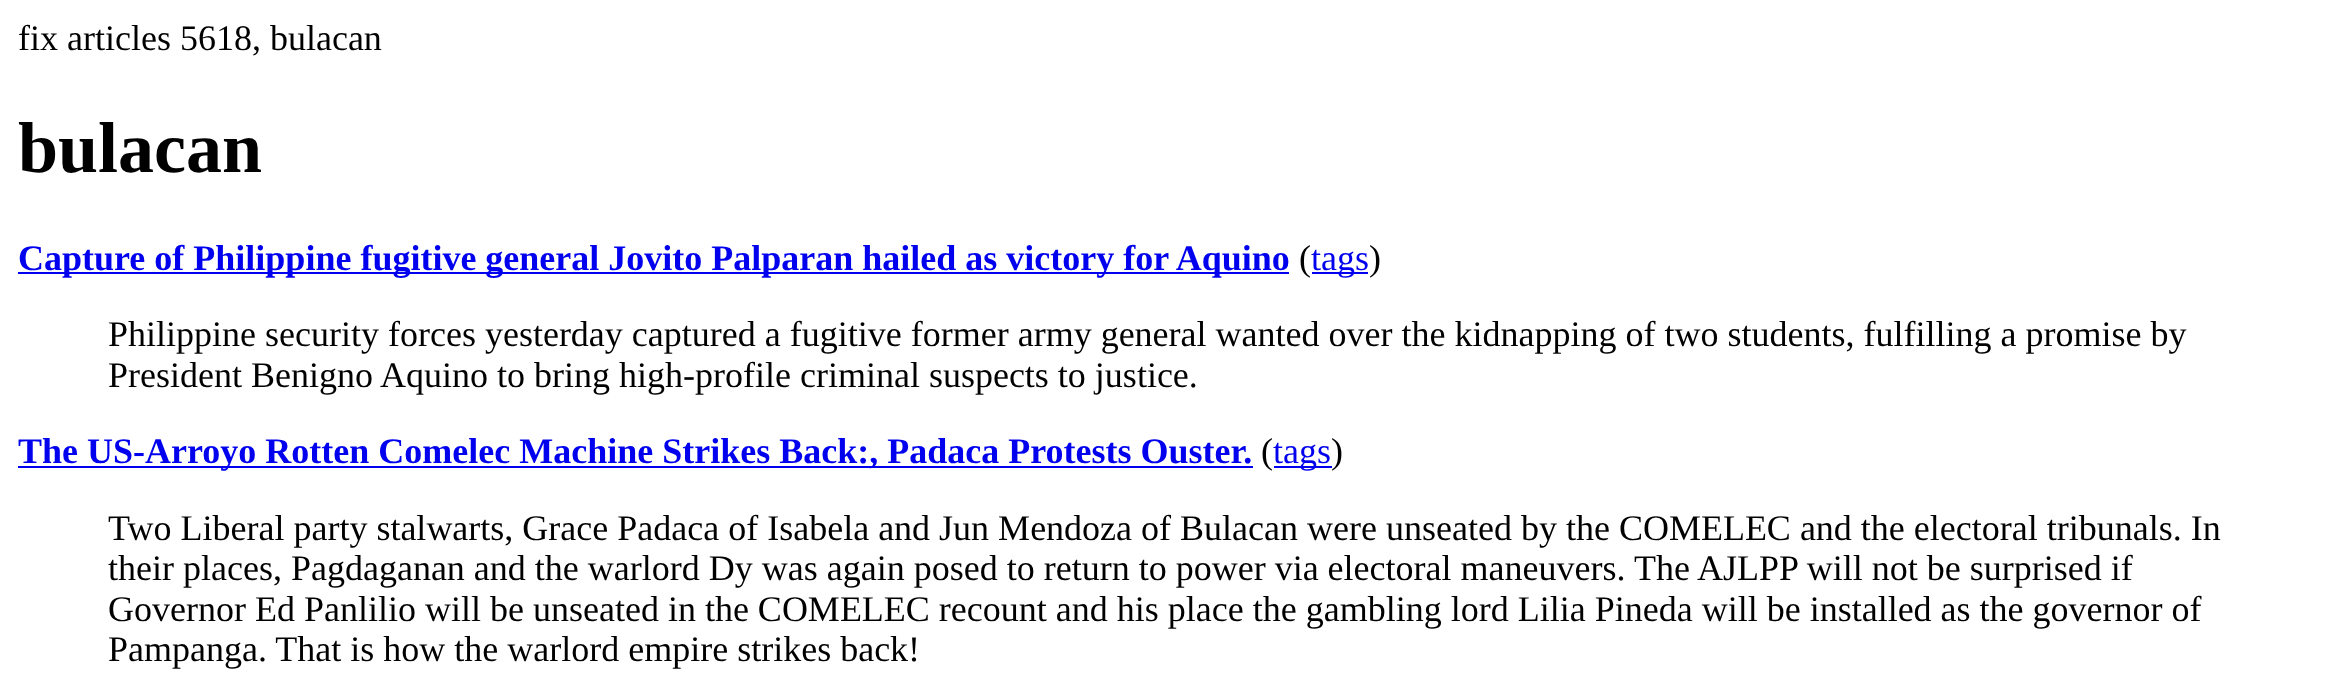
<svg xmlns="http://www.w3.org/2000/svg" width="2351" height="691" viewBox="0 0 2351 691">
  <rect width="100%" height="100%" fill="rgb(255,255,255)"/>
  <text x="18" y="50" font-family="Liberation Serif" font-size="36" fill="rgb(0,0,0)">fix articles 5618, bulacan</text>
  <text x="18" y="172" font-family="Liberation Serif" font-size="72" font-weight="bold" fill="rgb(0,0,0)">bulacan</text>
  <rect x="18" y="272" width="1271" height="2" fill="rgb(0,0,238)"/>
  <text x="18" y="270" font-family="Liberation Serif" font-size="36" font-weight="bold" fill="rgb(0,0,238)">Capture of Philippine fugitive general Jovito Palparan hailed as victory for Aquino</text>
  <text x="1299" y="270" font-family="Liberation Serif" font-size="36" fill="rgb(0,0,0)">(</text>
  <rect x="1312" y="272" width="56" height="2" fill="rgb(0,0,238)"/>
  <text x="1311" y="270" font-family="Liberation Serif" font-size="36" fill="rgb(0,0,238)">tags</text>
  <g font-family="Liberation Serif" font-size="36" fill="rgb(0,0,0)">
    <text x="1369" y="270">)</text>
    <text>
      <tspan x="108" y="346">Philippine security forces yesterday captured a fugitive former army general wanted over the kidnapping of two students, fulfilling a promise by</tspan>
      <tspan x="108" y="387">President Benigno Aquino to bring high-profile criminal suspects to justice.</tspan>
    </text>
  </g>
  <rect x="18" y="466" width="1235" height="2" fill="rgb(0,0,238)"/>
  <text x="18" y="463" font-family="Liberation Serif" font-size="36" font-weight="bold" fill="rgb(0,0,238)">The US-Arroyo Rotten Comelec Machine Strikes Back:, Padaca Protests Ouster.</text>
  <text x="1261" y="463" font-family="Liberation Serif" font-size="36" fill="rgb(0,0,0)">(</text>
  <rect x="1274" y="466" width="58" height="2" fill="rgb(0,0,238)"/>
  <text x="1273" y="463" font-family="Liberation Serif" font-size="36" fill="rgb(0,0,238)">tags</text>
  <g font-family="Liberation Serif" font-size="36" fill="rgb(0,0,0)">
    <text x="1331" y="463">)</text>
    <text>
      <tspan x="108" y="540">Two Liberal party stalwarts, Grace Padaca of Isabela and Jun Mendoza of Bulacan were unseated by the COMELEC and the electoral tribunals. In</tspan>
      <tspan x="108" y="580">their places, Pagdaganan and the warlord Dy was again posed to return to power via electoral maneuvers.</tspan>
    </text>
    <text x="1634" y="580">The AJLPP will not be surprised if</text>
    <text>
      <tspan x="108" y="621">Governor Ed Panlilio will be unseated in the COMELEC recount and his place the gambling lord Lilia Pineda will be installed as the governor of</tspan>
      <tspan x="108" y="661">Pampanga. That is how the warlord empire strikes back!</tspan>
    </text>
  </g>
</svg>
